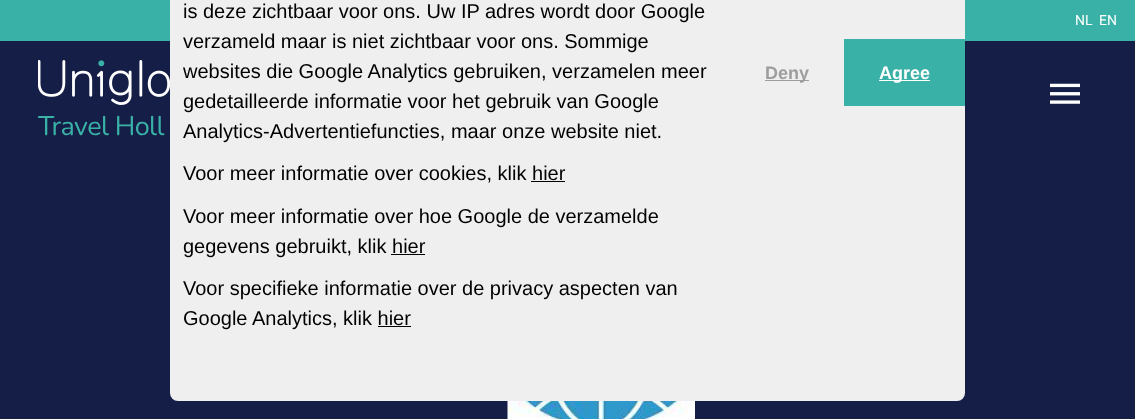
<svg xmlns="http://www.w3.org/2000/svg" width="1135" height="419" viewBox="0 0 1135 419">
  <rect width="100%" height="100%" fill="rgb(21,30,71)"/>
  <rect x="0" y="0" width="1135" height="41" fill="rgb(58,177,167)"/>
  <rect x="170" y="-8" width="795" height="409" rx="8" fill="rgb(239,239,239)"/>
  <g font-family="Liberation Sans" font-size="20" fill="rgb(0,0,0)">
    <text>
      <tspan x="183" y="18">is deze zichtbaar voor ons. Uw IP adres wordt door Google</tspan>
      <tspan x="183" y="48">verzameld maar is niet zichtbaar voor ons. Sommige</tspan>
      <tspan x="183" y="78">websites die Google Analytics gebruiken, verzamelen meer</tspan>
      <tspan x="183" y="108">gedetailleerde informatie voor het gebruik van Google</tspan>
      <tspan x="183" y="138">Analytics-Advertentiefuncties, maar onze website niet.</tspan>
    </text>
    <text x="183" y="180">Voor meer informatie over cookies, klik hier</text>
  </g>
  <rect x="531" y="181" width="34" height="1" fill="rgb(0,0,0)"/>
  <g font-family="Liberation Sans" font-size="20" fill="rgb(0,0,0)">
    <text>
      <tspan x="183" y="223">Voor meer informatie over hoe Google de verzamelde</tspan>
      <tspan x="183" y="253">gegevens gebruikt, klik hier</tspan>
    </text>
  </g>
  <rect x="391" y="254" width="34" height="1" fill="rgb(0,0,0)"/>
  <g font-family="Liberation Sans" font-size="20" fill="rgb(0,0,0)">
    <text>
      <tspan x="183" y="295">Voor specifieke informatie over de privacy aspecten van</tspan>
      <tspan x="183" y="325">Google Analytics, klik hier</tspan>
    </text>
  </g>
  <rect x="378" y="326" width="33" height="1" fill="rgb(0,0,0)"/>
  <rect x="765" y="80" width="44" height="1" fill="rgb(158,158,158)"/>
  <text x="765" y="79" font-family="Liberation Sans" font-size="18" font-weight="bold" fill="rgb(158,158,158)">Deny</text>
  <rect x="844" y="39" width="121" height="67" fill="rgb(58,177,167)"/>
  <rect x="879" y="80" width="51" height="1" fill="rgb(255,255,255)"/>
  <text x="879" y="79" font-family="Liberation Sans" font-size="18" font-weight="bold" fill="rgb(255,255,255)">Agree</text>
  <g font-family="Roboto" font-size="14" fill="rgb(255,255,255)">
    <text x="1075" y="25">NL</text>
    <text x="1099" y="25">EN</text>
  </g>
  <image x="1050" y="83" width="30" height="21" href="pic1.png"/>
  <image x="38" y="60" width="132" height="45" href="pic2.png"/>
  <text x="38" y="135" font-family="Nunito" font-size="27" letter-spacing="-0.6" fill="rgb(58,177,167)">Travel Holl</text>
  <image x="507" y="401" width="188" height="18" href="pic3.png"/>
</svg>
